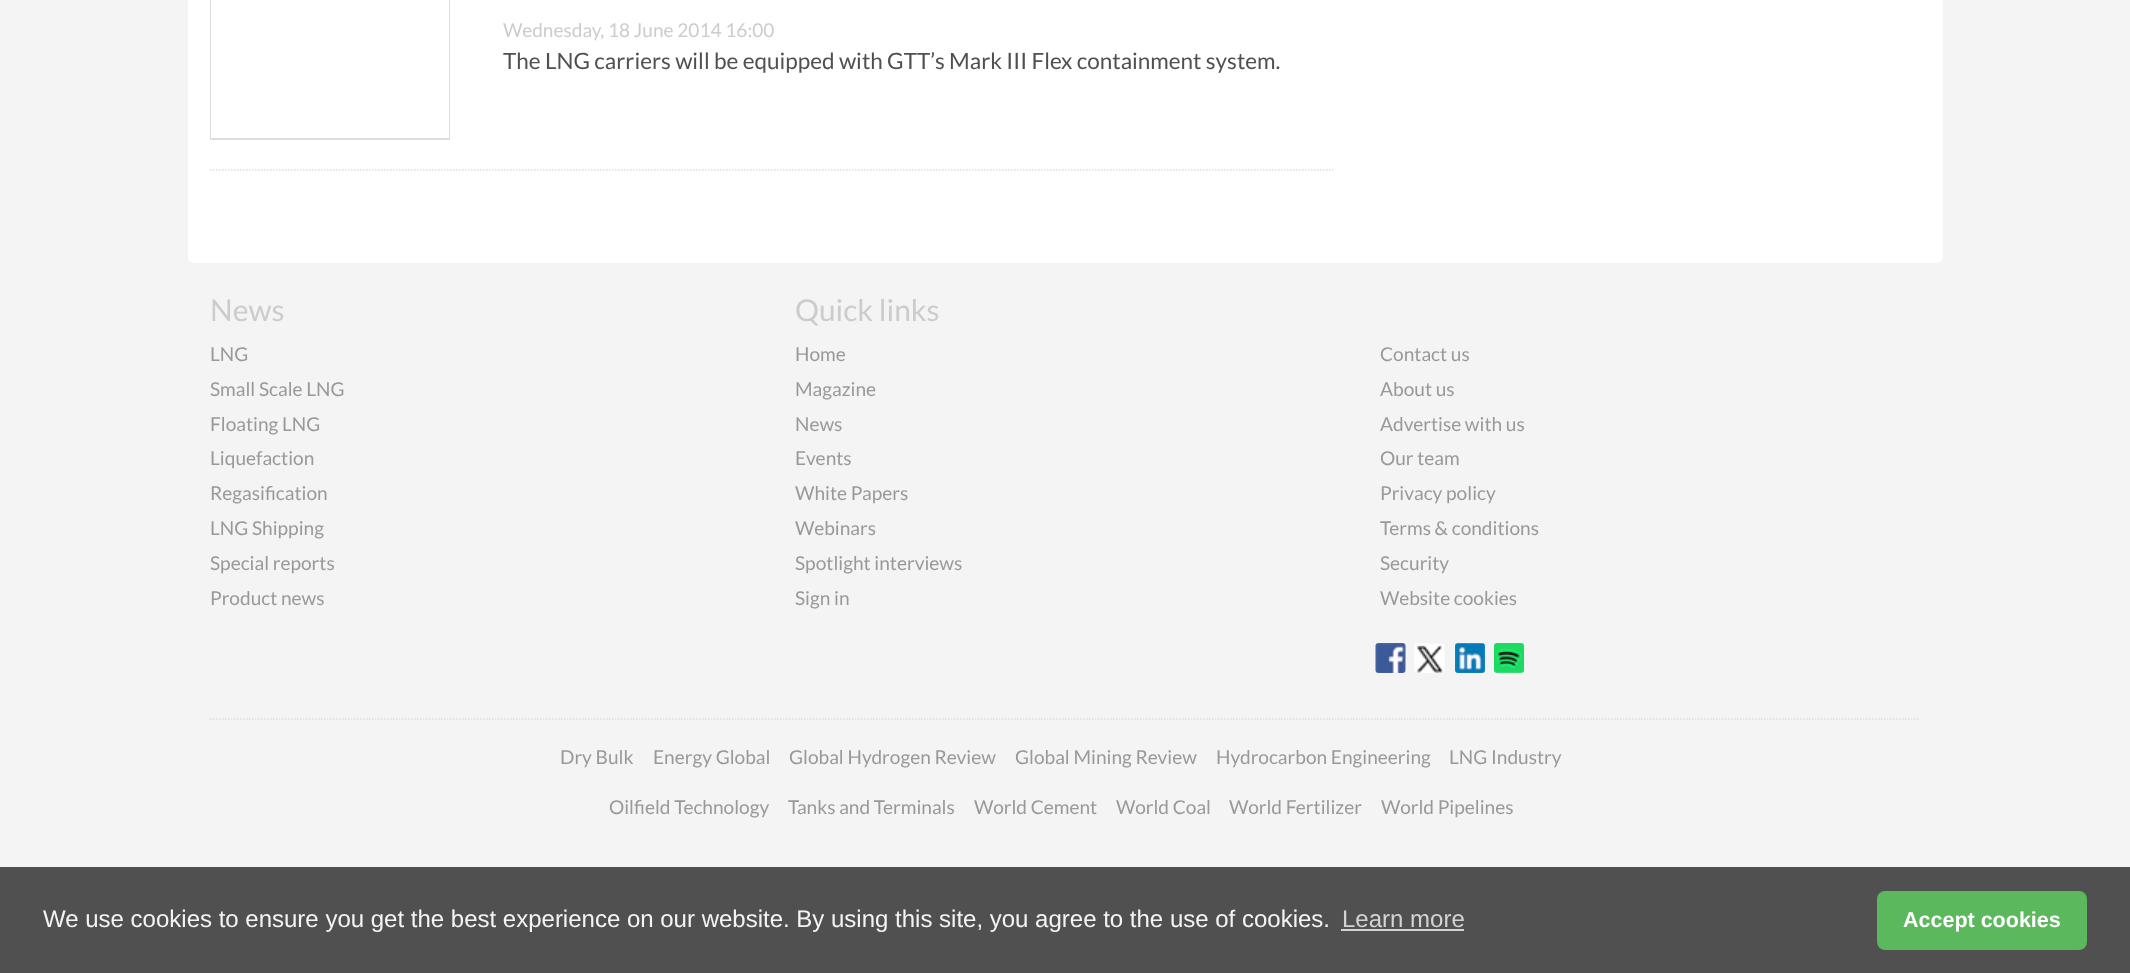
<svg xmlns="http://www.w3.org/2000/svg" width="2130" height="973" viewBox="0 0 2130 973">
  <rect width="100%" height="100%" fill="rgb(244,244,244)"/>
  <rect x="188" y="-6" width="1755" height="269" rx="6" fill="rgb(255,255,255)"/>
  <rect x="211" y="-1" width="238" height="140" fill="none" stroke="rgb(221,221,221)" stroke-width="2"/>
  <rect x="211" y="0" width="238" height="138" fill="rgb(255,255,255)"/>
  <text x="503" y="37" font-family="Lato" font-size="19.1" fill="rgb(204,204,204)">Wednesday, 18 June 2014 16:00</text>
  <text x="503" y="69" font-family="Lato" font-size="22.5" fill="rgb(80,80,80)">The LNG carriers will be equipped with GTT’s Mark III Flex containment system.</text>
  <path d="M210 170H1335" fill="none" stroke="rgb(221,221,221)" stroke-width="1.5" stroke-dasharray="1.5 1.5"/>
  <text x="210" y="321" font-family="Lato" font-size="30" fill="rgb(204,204,204)">News</text>
  <g font-family="Lato" font-size="19.1" fill="rgb(153,153,153)">
    <text>
      <tspan x="210" y="361">LNG</tspan>
      <tspan x="210" y="396">Small Scale LNG</tspan>
      <tspan x="210" y="431">Floating LNG</tspan>
      <tspan x="210" y="465">Liquefaction</tspan>
      <tspan x="210" y="500">Regasification</tspan>
      <tspan x="210" y="535">LNG Shipping</tspan>
      <tspan x="210" y="570">Special reports</tspan>
      <tspan x="210" y="605">Product news</tspan>
    </text>
  </g>
  <text x="795" y="321" font-family="Lato" font-size="30" fill="rgb(204,204,204)">Quick links</text>
  <g font-family="Lato" font-size="19.1" fill="rgb(153,153,153)">
    <text>
      <tspan x="795" y="361">Home</tspan>
      <tspan x="795" y="396">Magazine</tspan>
      <tspan x="795" y="431">News</tspan>
      <tspan x="795" y="465">Events</tspan>
      <tspan x="795" y="500">White Papers</tspan>
      <tspan x="795" y="535">Webinars</tspan>
      <tspan x="795" y="570">Spotlight interviews</tspan>
      <tspan x="795" y="605">Sign in</tspan>
    </text>
    <text>
      <tspan x="1380" y="361">Contact us</tspan>
      <tspan x="1380" y="396">About us</tspan>
      <tspan x="1380" y="431">Advertise with us</tspan>
      <tspan x="1380" y="465">Our team</tspan>
      <tspan x="1380" y="500">Privacy policy</tspan>
      <tspan x="1380" y="535">Terms &amp; conditions</tspan>
      <tspan x="1380" y="570">Security</tspan>
      <tspan x="1380" y="605">Website cookies</tspan>
    </text>
  </g>
  <image x="1375" y="643" width="31" height="30" href="pic1.png"/>
  <image x="1414" y="643" width="31" height="30" href="pic2.png"/>
  <image x="1455" y="643" width="30" height="30" href="pic3.png"/>
  <image x="1494" y="643" width="30" height="30" href="pic4.png"/>
  <path d="M210 719H1920" fill="none" stroke="rgb(221,221,221)" stroke-width="1.5" stroke-dasharray="1.5 1.5"/>
  <g font-family="Lato" font-size="19.1" fill="rgb(153,153,153)">
    <text x="560" y="764">Dry Bulk</text>
    <text x="653" y="764">Energy Global</text>
    <text x="789" y="764">Global Hydrogen Review</text>
    <text x="1015" y="764">Global Mining Review</text>
    <text x="1216" y="764">Hydrocarbon Engineering</text>
    <text x="1449" y="764">LNG Industry</text>
    <text x="609" y="814">Oilfield Technology</text>
    <text x="788" y="814">Tanks and Terminals</text>
    <text x="974" y="814">World Cement</text>
    <text x="1116" y="814">World Coal</text>
    <text x="1229" y="814">World Fertilizer</text>
    <text x="1381" y="814">World Pipelines</text>
  </g>
  <rect x="0" y="867" width="2130" height="106" fill="rgb(80,80,80)"/>
  <text x="43" y="927" font-family="Liberation Sans" font-size="24" fill="rgb(244,244,244)">We use cookies to ensure you get the best experience on our website. By using this site, you agree to the use of cookies.</text>
  <text x="1342" y="927" font-family="Liberation Sans" font-size="24" fill="rgb(211,211,211)">Learn more</text>
  <rect x="1341" y="929" width="123" height="2" fill="rgb(211,211,211)"/>
  <rect x="1877" y="891" width="210" height="59" rx="8" fill="rgb(92,184,92)"/>
  <text x="1903" y="927" font-family="Liberation Sans" font-size="21.5" font-weight="bold" fill="rgb(255,255,255)">Accept cookies</text>
</svg>
